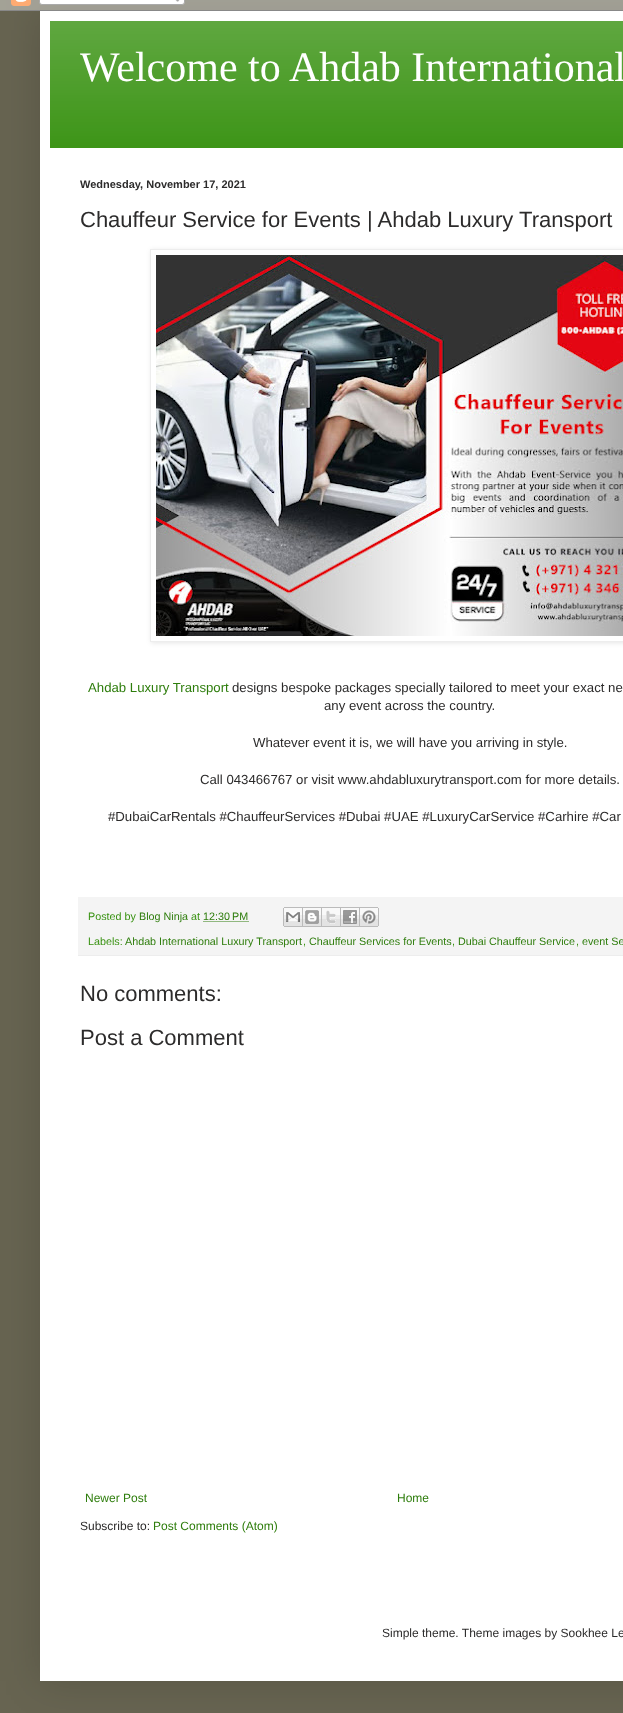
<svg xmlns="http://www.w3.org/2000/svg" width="623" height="1713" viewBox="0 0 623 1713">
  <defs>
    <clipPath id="clip1"><path d="M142 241H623V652H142ZM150 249H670V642H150Z" clip-rule="evenodd"/></clipPath>
  </defs>
  <rect width="100%" height="100%" fill="rgb(103,100,81)"/>
  <rect x="40" y="11" width="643" height="1670" fill="rgba(0,0,0,0.15)" filter="blur(20px)"/>
  <image x="0" y="0" width="623" height="11" href="pic1.png"/>
  <rect x="40" y="11" width="583" height="1670" fill="rgb(255,255,255)"/>
  <rect x="50" y="21" width="573" height="127" fill="rgb(56,146,17)"/>
  <image x="50" y="21" width="573" height="127" href="pic2.png"/>
  <text x="80" y="81" font-family="Liberation Serif" font-size="42" fill="rgb(255,255,255)">Welcome to Ahdab International</text>
  <text x="80" y="188" font-family="Liberation Sans" font-size="11" font-weight="bold" fill="rgb(44,43,43)">Wednesday, November 17, 2021</text>
  <text x="80" y="227" font-family="Liberation Sans" font-size="22" fill="rgb(44,43,43)">Chauffeur Service for Events | Ahdab Luxury Transport</text>
  <g clip-path="url(#clip1)">
    <rect x="151" y="250" width="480" height="393" fill="rgba(0,0,0,0.1)" filter="blur(2.5px)"/>
  </g>
  <rect x="150.5" y="249.5" width="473" height="392" fill="none" stroke="rgb(237,237,237)"/>
  <image x="156" y="255" width="467" height="381" href="pic3.png"/>
  <text x="88" y="692" font-family="Liberation Sans" font-size="13.2" fill="rgb(46,125,12)">Ahdab Luxury Transport</text>
  <g font-family="Liberation Sans" font-size="13.2" fill="rgb(44,43,43)">
    <text x="232" y="692">designs bespoke packages specially tailored to meet your exact ne</text>
    <text x="324" y="710">any event across the country.</text>
    <text x="253" y="747">Whatever event it is, we will have you arriving in style.</text>
    <text x="200" y="784">Call 043466767 or visit www.ahdabluxurytransport.com for more details.</text>
    <text x="108" y="821">#DubaiCarRentals #ChauffeurServices #Dubai #UAE #LuxuryCarService #Carhire #Car</text>
  </g>
  <rect x="78" y="897" width="545" height="58" fill="rgb(244,244,244)"/>
  <rect x="78" y="955" width="545" height="1" fill="rgb(237,237,237)"/>
  <text x="88" y="920" font-family="Liberation Sans" font-size="10.75" fill="rgb(56,146,17)">Posted by</text>
  <text x="139" y="920" font-family="Liberation Sans" font-size="10.75" fill="rgb(46,125,12)">Blog Ninja</text>
  <text x="191" y="920" font-family="Liberation Sans" font-size="10.75" fill="rgb(56,146,17)">at</text>
  <text x="203" y="920" font-family="Liberation Sans" font-size="10.75" fill="rgb(46,125,12)">12:30 PM</text>
  <path d="M203.5 921.5H248.5" fill="none" stroke="rgb(46,125,12)" stroke-dasharray="1 1"/>
  <image x="283" y="907" width="20" height="20" href="pic4.png"/>
  <image x="303" y="907" width="19" height="20" href="pic5.png"/>
  <image x="322" y="907" width="19" height="20" href="pic6.png"/>
  <image x="341" y="907" width="19" height="20" href="pic7.png"/>
  <image x="360" y="907" width="19" height="20" href="pic8.png"/>
  <text x="88" y="945" font-family="Liberation Sans" font-size="10.75" fill="rgb(56,146,17)">Labels:</text>
  <text x="125" y="945" font-family="Liberation Sans" font-size="10.75" fill="rgb(46,125,12)">Ahdab International Luxury Transport</text>
  <text x="303" y="945" font-family="Liberation Sans" font-size="10.75" fill="rgb(56,146,17)">,</text>
  <text x="309" y="945" font-family="Liberation Sans" font-size="10.75" fill="rgb(46,125,12)">Chauffeur Services for Events</text>
  <text x="452" y="945" font-family="Liberation Sans" font-size="10.75" fill="rgb(56,146,17)">,</text>
  <text x="458" y="945" font-family="Liberation Sans" font-size="10.75" fill="rgb(46,125,12)">Dubai Chauffeur Service</text>
  <text x="576" y="945" font-family="Liberation Sans" font-size="10.75" fill="rgb(56,146,17)">,</text>
  <text x="582" y="945" font-family="Liberation Sans" font-size="10.75" fill="rgb(46,125,12)">event Se</text>
  <g font-family="Liberation Sans" font-size="22" fill="rgb(44,43,43)">
    <text x="80" y="1001">No comments:</text>
    <text x="80" y="1045">Post a Comment</text>
  </g>
  <g font-family="Liberation Sans" font-size="12" fill="rgb(46,125,12)">
    <text x="85" y="1502">Newer Post</text>
    <text x="397" y="1502">Home</text>
  </g>
  <text x="80" y="1530" font-family="Liberation Sans" font-size="12" fill="rgb(44,43,43)">Subscribe to:</text>
  <text x="153" y="1530" font-family="Liberation Sans" font-size="12" fill="rgb(46,125,12)">Post Comments (Atom)</text>
  <text x="382" y="1637" font-family="Liberation Sans" font-size="12" fill="rgb(44,43,43)">Simple theme. Theme images by Sookhee Le</text>
</svg>
